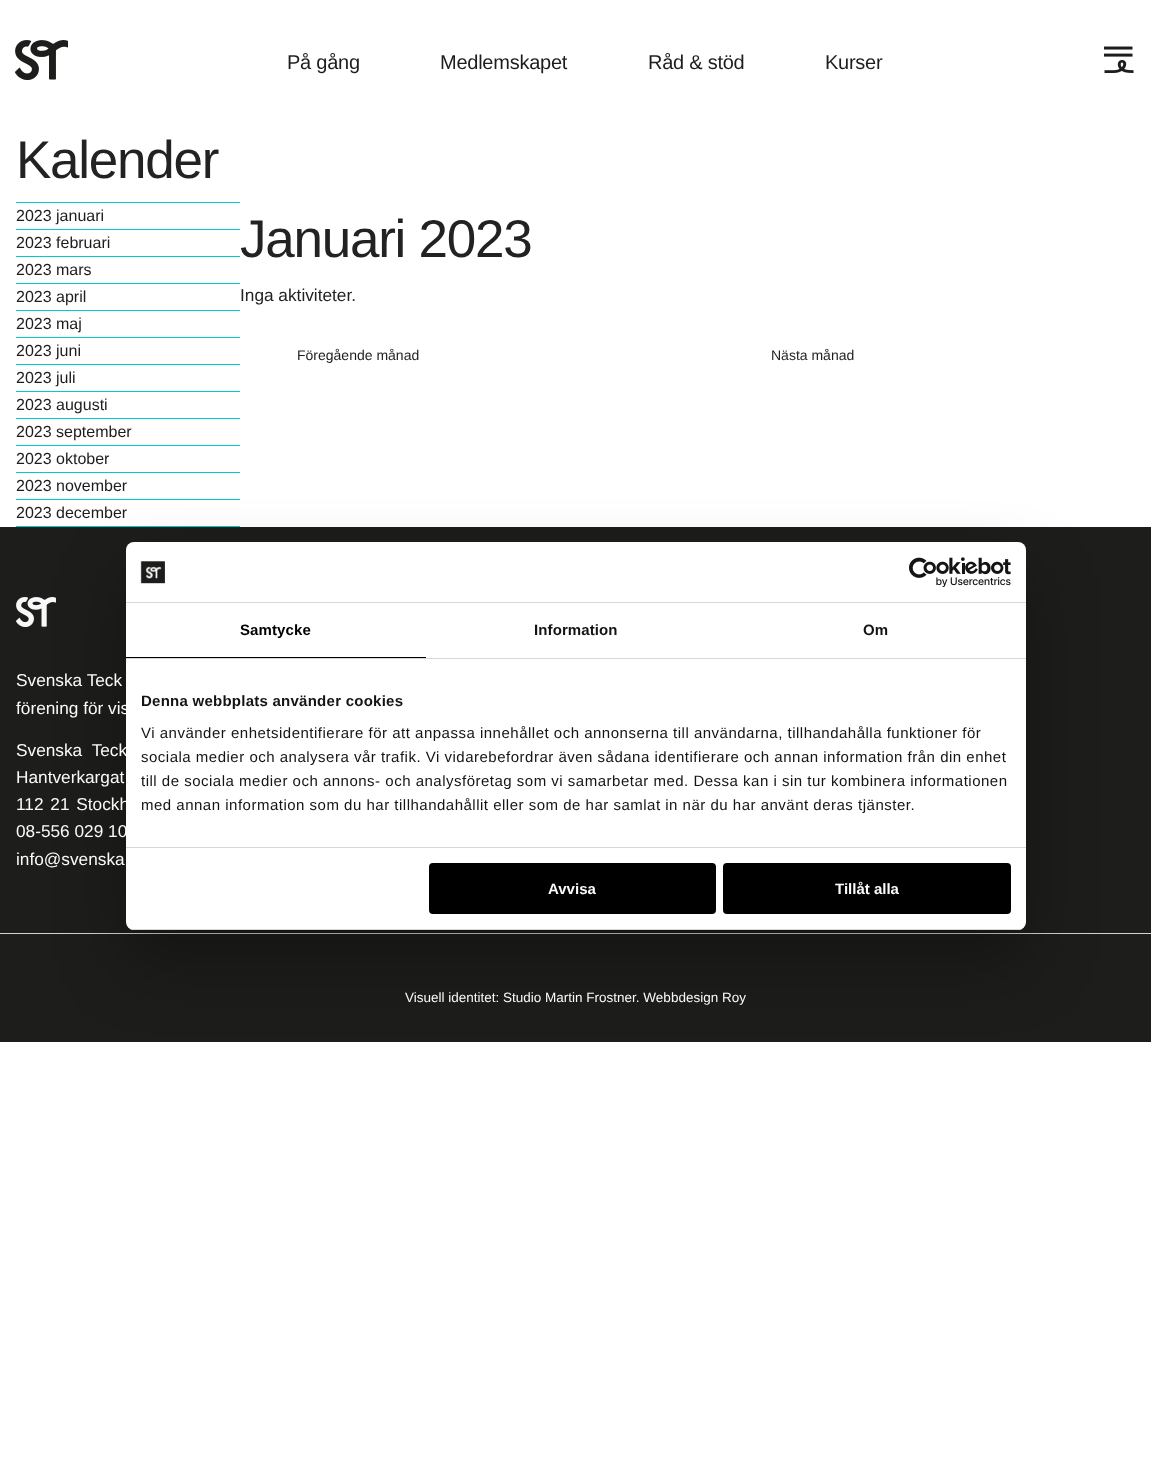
<svg xmlns="http://www.w3.org/2000/svg" width="1151" height="1472" viewBox="0 0 1151 1472">
  <defs>
    <clipPath id="clip1"><rect x="126" y="542" width="900" height="388" rx="8"/></clipPath>
  </defs>
  <rect width="100%" height="100%" fill="rgb(255,255,255)"/>
  <image x="15" y="40" width="53" height="40" href="pic1.png"/>
  <g font-family="Liberation Sans" font-size="20" letter-spacing="-0.25" fill="rgb(29,29,27)">
    <text x="287" y="69">På gång</text>
    <text x="440" y="69">Medlemskapet</text>
    <text x="648" y="69">Råd &amp; stöd</text>
    <text x="825" y="69">Kurser</text>
  </g>
  <image x="1104" y="46" width="30" height="27" href="pic2.png"/>
  <text x="16" y="178" font-family="Liberation Sans" font-size="53" letter-spacing="-1.25" fill="rgb(34,34,34)">Kalender</text>
  <rect x="16" y="526" width="224" height="1" fill="rgb(0,202,210)"/>
  <rect x="16" y="202" width="224" height="1" fill="rgb(0,202,210)"/>
  <text x="16" y="221" font-family="Liberation Sans" font-size="16" fill="rgb(29,29,27)">2023 januari</text>
  <rect x="16" y="229" width="224" height="1" fill="rgb(0,202,210)"/>
  <text x="16" y="248" font-family="Liberation Sans" font-size="16" fill="rgb(29,29,27)">2023 februari</text>
  <rect x="16" y="256" width="224" height="1" fill="rgb(0,202,210)"/>
  <text x="16" y="275" font-family="Liberation Sans" font-size="16" fill="rgb(29,29,27)">2023 mars</text>
  <rect x="16" y="283" width="224" height="1" fill="rgb(0,202,210)"/>
  <text x="16" y="302" font-family="Liberation Sans" font-size="16" fill="rgb(29,29,27)">2023 april</text>
  <rect x="16" y="310" width="224" height="1" fill="rgb(0,202,210)"/>
  <text x="16" y="329" font-family="Liberation Sans" font-size="16" fill="rgb(29,29,27)">2023 maj</text>
  <rect x="16" y="337" width="224" height="1" fill="rgb(0,202,210)"/>
  <text x="16" y="356" font-family="Liberation Sans" font-size="16" fill="rgb(29,29,27)">2023 juni</text>
  <rect x="16" y="364" width="224" height="1" fill="rgb(0,202,210)"/>
  <text x="16" y="383" font-family="Liberation Sans" font-size="16" fill="rgb(29,29,27)">2023 juli</text>
  <rect x="16" y="391" width="224" height="1" fill="rgb(0,202,210)"/>
  <text x="16" y="410" font-family="Liberation Sans" font-size="16" fill="rgb(29,29,27)">2023 augusti</text>
  <rect x="16" y="418" width="224" height="1" fill="rgb(0,202,210)"/>
  <text x="16" y="437" font-family="Liberation Sans" font-size="16" fill="rgb(29,29,27)">2023 september</text>
  <rect x="16" y="445" width="224" height="1" fill="rgb(0,202,210)"/>
  <text x="16" y="464" font-family="Liberation Sans" font-size="16" fill="rgb(29,29,27)">2023 oktober</text>
  <rect x="16" y="472" width="224" height="1" fill="rgb(0,202,210)"/>
  <text x="16" y="491" font-family="Liberation Sans" font-size="16" fill="rgb(29,29,27)">2023 november</text>
  <rect x="16" y="499" width="224" height="1" fill="rgb(0,202,210)"/>
  <text x="16" y="518" font-family="Liberation Sans" font-size="16" fill="rgb(29,29,27)">2023 december</text>
  <text x="240" y="257" font-family="Liberation Sans" font-size="53" letter-spacing="-1.25" fill="rgb(34,34,34)">Januari 2023</text>
  <text x="240" y="301" font-family="Liberation Sans" font-size="17.25" fill="rgb(34,34,34)">Inga aktiviteter.</text>
  <g font-family="Liberation Sans" font-size="14" fill="rgb(29,29,27)">
    <text x="297" y="360">Föregående månad</text>
    <text x="771" y="360">Nästa månad</text>
  </g>
  <rect x="0" y="527" width="1151" height="515" fill="rgb(29,29,27)"/>
  <image x="16" y="597" width="40" height="30" href="pic5.png"/>
  <rect x="0" y="933" width="1151" height="1" fill="rgb(210,210,209)"/>
  <rect x="126" y="574" width="900" height="388" rx="8" fill="rgba(0,0,0,0.3)" filter="blur(34px)"/>
  <g font-family="Liberation Sans" font-size="17.25" fill="rgb(250,250,250)">
    <text x="16" y="714">förening för vis</text>
    <text x="16" y="756" word-spacing="5">Svenska Teck</text>
    <text>
      <tspan x="16" y="810" word-spacing="2">112 21 Stockh</tspan>
      <tspan x="16" y="837">08-556 029 10</tspan>
    </text>
  </g>
  <rect x="126" y="542" width="900" height="388" rx="8" fill="rgb(255,255,255)"/>
  <rect x="126" y="602" width="900" height="1" fill="rgb(214,214,214)"/>
  <image x="140" y="561" width="25" height="23" href="pic3.png"/>
  <image x="909" y="557" width="102" height="30" href="pic4.png"/>
  <rect x="126" y="658" width="900" height="1" fill="rgb(214,214,214)"/>
  <rect x="126" y="657" width="300" height="1" fill="rgb(0,0,0)"/>
  <text x="240" y="635" font-family="Liberation Sans" font-size="15" font-weight="bold" letter-spacing="0.1" fill="rgb(0,0,0)">Samtycke</text>
  <g font-family="Liberation Sans" font-size="15" font-weight="bold" letter-spacing="0.1" fill="rgb(20,20,20)">
    <text x="534" y="635">Information</text>
    <text x="863" y="635">Om</text>
  </g>
  <rect x="126" y="847" width="900" height="1" fill="rgb(214,214,214)"/>
  <text x="141" y="706" font-family="Liberation Sans" font-size="15" font-weight="bold" letter-spacing="0.25" fill="rgb(20,20,20)">Denna webbplats använder cookies</text>
  <g font-family="Liberation Sans" font-size="15" letter-spacing="0.5" fill="rgb(20,20,20)">
    <text>
      <tspan x="141" y="738">Vi använder enhetsidentifierare för att anpassa innehållet och annonserna till användarna, tillhandahålla funktioner för</tspan>
      <tspan x="141" y="762">sociala medier och analysera vår trafik. Vi vidarebefordrar även sådana identifierare och annan information från din enhet</tspan>
      <tspan x="141" y="786">till de sociala medier och annons- och analysföretag som vi samarbetar med. Dessa kan i sin tur kombinera informationen</tspan>
      <tspan x="141" y="810">med annan information som du har tillhandahållit eller som de har samlat in när du har använt deras tjänster.</tspan>
    </text>
  </g>
  <g clip-path="url(#clip1)">
    <rect x="126" y="929" width="900" height="1" fill="rgb(214,214,214)"/>
  </g>
  <rect x="430" y="864" width="285" height="49" rx="3" fill="rgb(0,0,0)" stroke="rgb(0,0,0)" stroke-width="2"/>
  <text x="548" y="894" font-family="Liberation Sans" font-size="15" font-weight="bold" fill="rgb(250,250,250)">Avvisa</text>
  <rect x="724" y="864" width="286" height="49" rx="3" fill="rgb(0,0,0)" stroke="rgb(0,0,0)" stroke-width="2"/>
  <text x="835" y="894" font-family="Liberation Sans" font-size="15" font-weight="bold" fill="rgb(250,250,250)">Tillåt alla</text>
  <g font-family="Liberation Sans" font-size="17.25" fill="rgb(250,250,250)">
    <text x="16" y="686">Svenska Teck</text>
    <text x="16" y="783" word-spacing="5">Hantverkargat</text>
    <text x="16" y="865">info@svenska</text>
  </g>
  <text x="405" y="1002" font-family="Liberation Sans" font-size="13.5" fill="rgb(250,250,250)">Visuell identitet: Studio Martin Frostner. Webbdesign Roy</text>
</svg>
